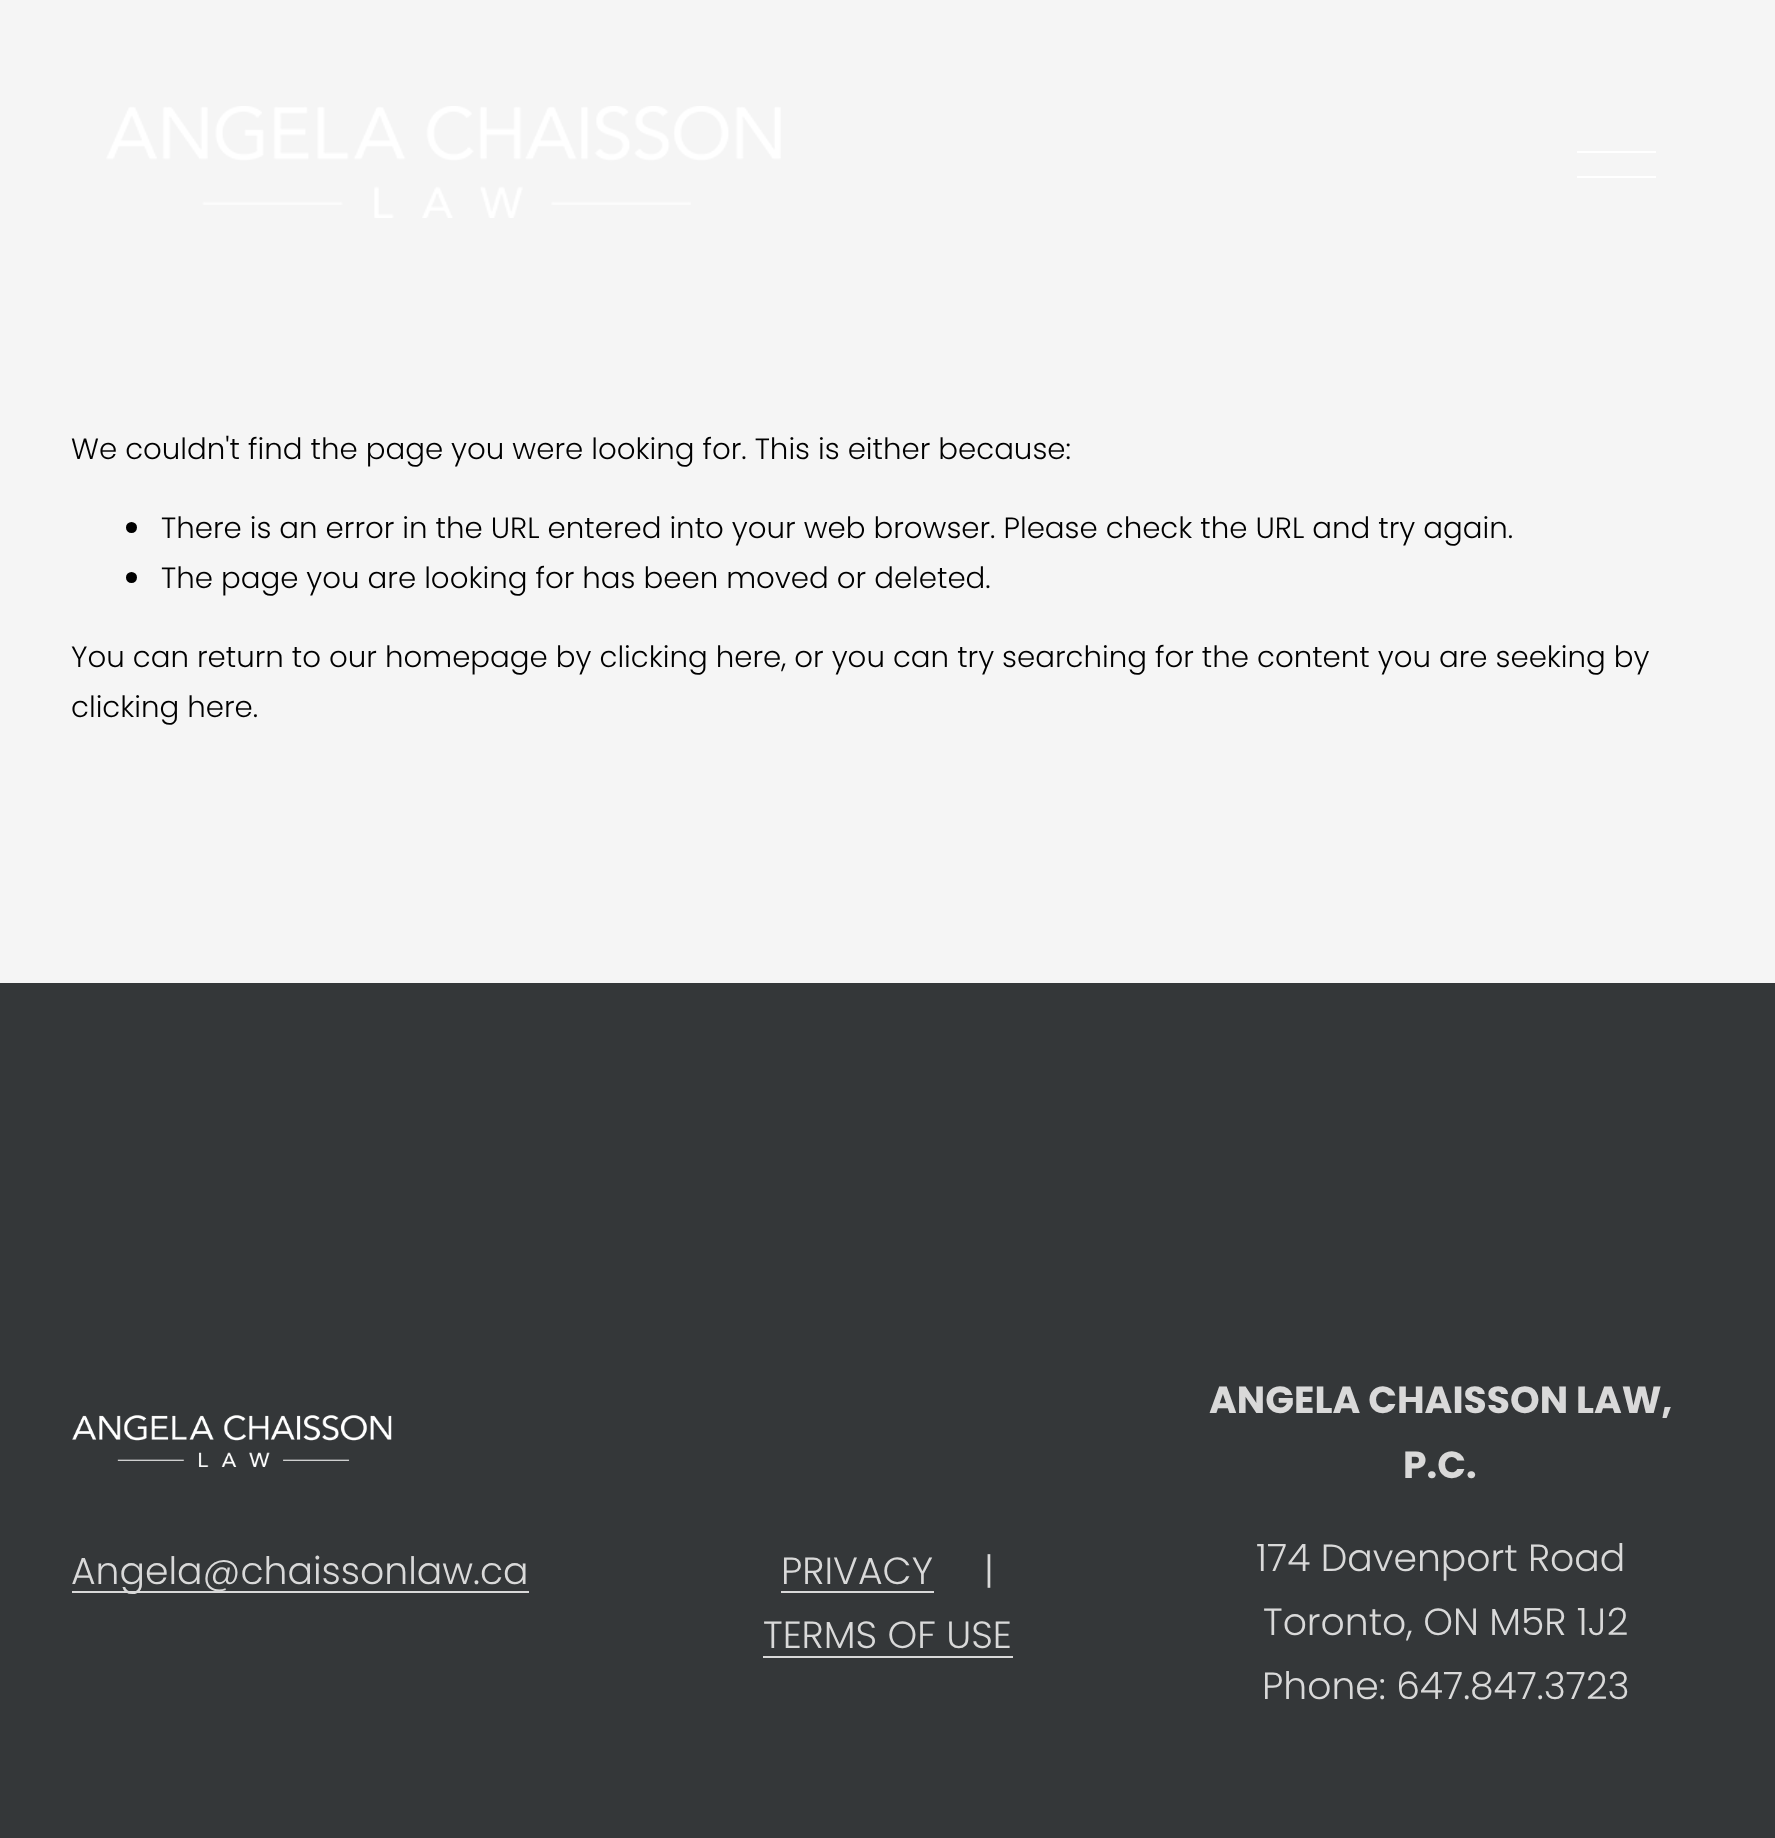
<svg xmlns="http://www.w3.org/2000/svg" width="1775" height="1838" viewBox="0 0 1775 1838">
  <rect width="100%" height="100%" fill="rgb(245,245,245)"/>
  <image x="106" y="106" width="675" height="112" href="pic1.png"/>
  <rect x="1577" y="151" width="79" height="2" fill="rgb(255,255,255)"/>
  <rect x="1577" y="176" width="79" height="2" fill="rgb(255,255,255)"/>
  <text x="71" y="459" font-family="Poppins" font-size="29.25" font-weight="300" fill="rgb(0,0,0)">We couldn't find the page you were looking for. This is either because:</text>
  <circle cx="131.5" cy="527.5" r="5.5" fill="rgb(0,0,0)"/>
  <text x="161" y="538" font-family="Poppins" font-size="29.25" font-weight="300" fill="rgb(0,0,0)">There is an error in the URL entered into your web browser. Please check the URL and try again.</text>
  <circle cx="131.5" cy="577.5" r="5.5" fill="rgb(0,0,0)"/>
  <g font-family="Poppins" font-size="29.25" font-weight="300" fill="rgb(0,0,0)">
    <text x="161" y="588">The page you are looking for has been moved or deleted.</text>
    <text>
      <tspan x="71" y="667">You can return to our homepage by clicking here, or you can try searching for the content you are seeking by</tspan>
      <tspan x="71" y="717">clicking here.</tspan>
    </text>
  </g>
  <rect x="0" y="983" width="1775" height="855" fill="rgb(52,55,57)"/>
  <image x="72" y="1415" width="320" height="52" href="pic2.png"/>
  <g font-family="Poppins" font-size="37.75" font-weight="bold" fill="rgb(217,217,217)">
    <text x="1209" y="1413">ANGELA CHAISSON LAW,</text>
    <text x="1403" y="1478">P.C.</text>
  </g>
  <g font-family="Poppins" font-size="37.75" font-weight="300" fill="rgb(217,217,217)">
    <text x="1256" y="1571">174 Davenport Road</text>
    <text x="1263" y="1635">Toronto, ON M5R 1J2</text>
    <text x="1262" y="1699">Phone: 647.847.3723</text>
  </g>
  <rect x="72" y="1591" width="457" height="2" fill="rgb(217,217,217)"/>
  <g font-family="Poppins" font-size="37.75" font-weight="300" fill="rgb(217,217,217)">
    <text x="71" y="1584">Angela@chaissonlaw.ca</text>
    <text x="781" y="1584">PRIVACY</text>
  </g>
  <rect x="781" y="1591" width="153" height="2" fill="rgb(217,217,217)"/>
  <g font-family="Poppins" font-size="37.75" font-weight="300" fill="rgb(217,217,217)">
    <text x="984" y="1584">|</text>
    <text x="763" y="1648">TERMS OF USE</text>
  </g>
  <rect x="763" y="1656" width="250" height="2" fill="rgb(217,217,217)"/>
</svg>
